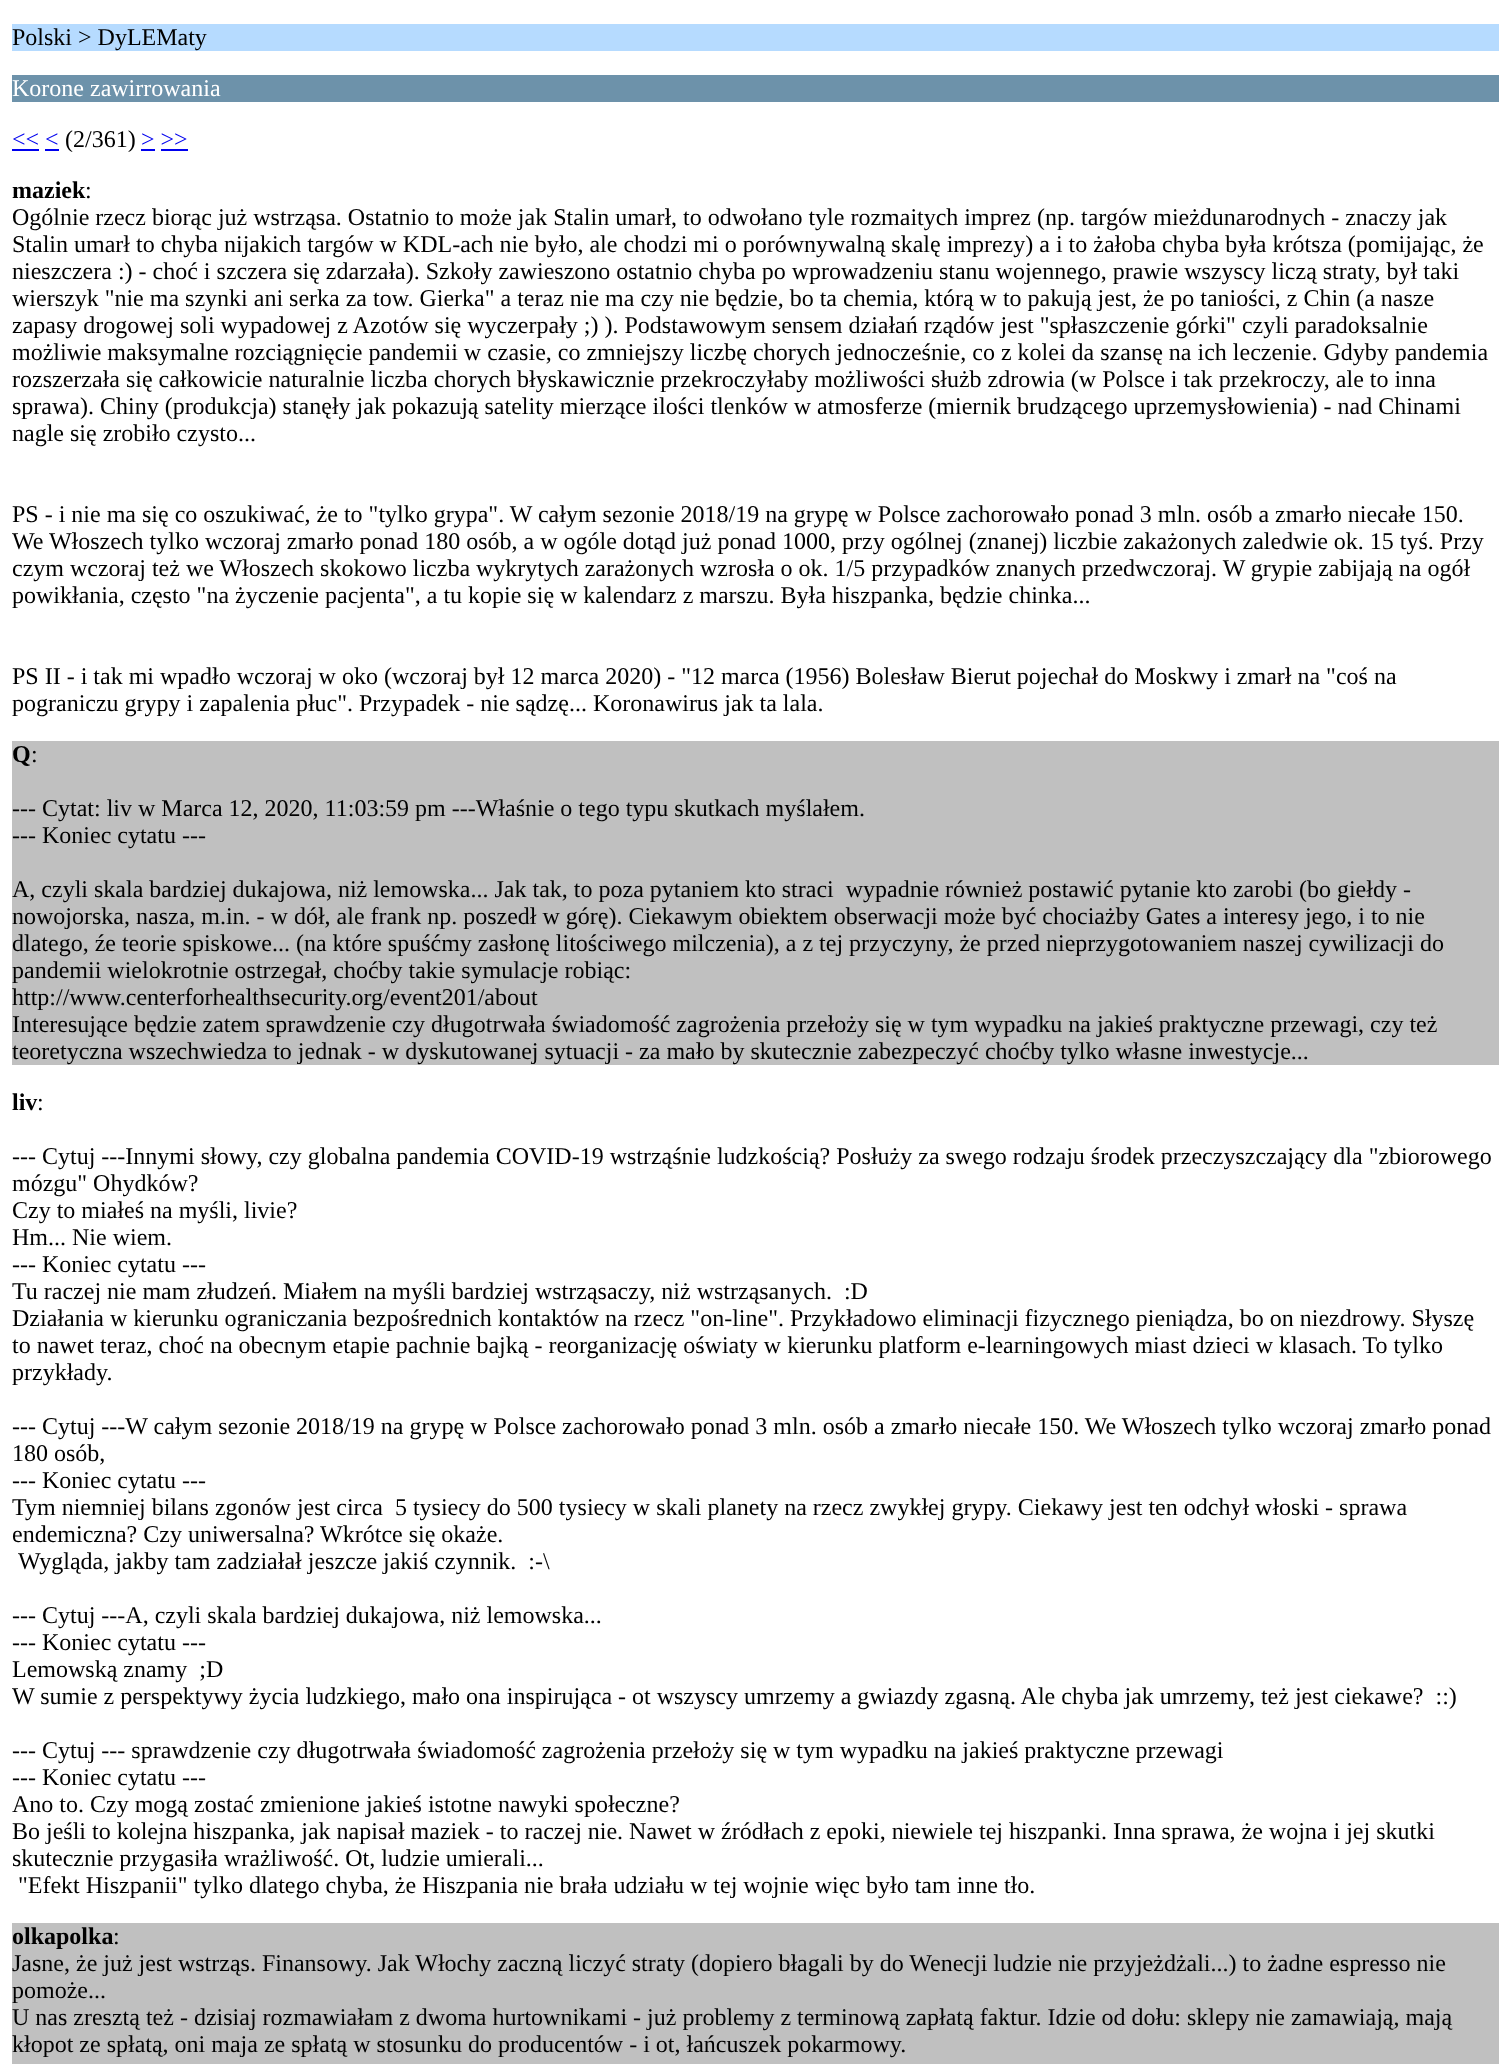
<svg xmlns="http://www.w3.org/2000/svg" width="1510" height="2064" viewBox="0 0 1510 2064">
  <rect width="100%" height="100%" fill="rgb(255,255,255)"/>
  <rect x="12" y="24" width="1487" height="27" fill="rgb(182,219,255)"/>
  <text x="12" y="45" font-family="Liberation Serif" font-size="24" fill="rgb(0,0,0)">Polski &gt; DyLEMaty</text>
  <rect x="12" y="75" width="1487" height="27" fill="rgb(109,146,170)"/>
  <text x="12" y="96" font-family="Liberation Serif" font-size="24" fill="rgb(255,255,255)">Korone zawirrowania</text>
  <text x="12" y="147" font-family="Liberation Serif" font-size="24" fill="rgb(0,0,238)">&lt;&lt; &lt;</text>
  <rect x="12" y="149" width="27" height="2" fill="rgb(0,0,238)"/>
  <text x="65" y="147" font-family="Liberation Serif" font-size="24" fill="rgb(0,0,0)">(2/361)</text>
  <text x="141" y="147" font-family="Liberation Serif" font-size="24" fill="rgb(0,0,238)">&gt; &gt;&gt;</text>
  <rect x="141" y="149" width="14" height="2" fill="rgb(0,0,238)"/>
  <rect x="45" y="149" width="14" height="2" fill="rgb(0,0,238)"/>
  <rect x="161" y="149" width="27" height="2" fill="rgb(0,0,238)"/>
  <text x="12" y="198" font-family="Liberation Serif" font-size="24" font-weight="bold" fill="rgb(0,0,0)">maziek</text>
  <g font-family="Liberation Serif" font-size="24" fill="rgb(0,0,0)">
    <text x="85" y="198">:</text>
    <text>
      <tspan x="12" y="225">Ogólnie rzecz biorąc już wstrząsa. Ostatnio to może jak Stalin umarł, to odwołano tyle rozmaitych imprez (np. targów mieżdunarodnych - znaczy jak</tspan>
      <tspan x="12" y="252">Stalin umarł to chyba nijakich targów w KDL-ach nie było, ale chodzi mi o porównywalną skalę imprezy) a i to żałoba chyba była krótsza (pomijając, że</tspan>
      <tspan x="12" y="279">nieszczera :) - choć i szczera się zdarzała). Szkoły zawieszono ostatnio chyba po wprowadzeniu stanu wojennego, prawie wszyscy liczą straty, był taki</tspan>
      <tspan x="12" y="306">wierszyk "nie ma szynki ani serka za tow. Gierka" a teraz nie ma czy nie będzie, bo ta chemia, którą w to pakują jest, że po taniości, z Chin (a nasze</tspan>
      <tspan x="12" y="333">zapasy drogowej soli wypadowej z Azotów się wyczerpały ;) ). Podstawowym sensem działań rządów jest "spłaszczenie górki" czyli paradoksalnie</tspan>
      <tspan x="12" y="360">możliwie maksymalne rozciągnięcie pandemii w czasie, co zmniejszy liczbę chorych jednocześnie, co z kolei da szansę na ich leczenie. Gdyby pandemia</tspan>
      <tspan x="12" y="387">rozszerzała się całkowicie naturalnie liczba chorych błyskawicznie przekroczyłaby możliwości służb zdrowia (w Polsce i tak przekroczy, ale to inna</tspan>
      <tspan x="12" y="414">sprawa). Chiny (produkcja) stanęły jak pokazują satelity mierzące ilości tlenków w atmosferze (miernik brudzącego uprzemysłowienia) - nad Chinami</tspan>
      <tspan x="12" y="441">nagle się zrobiło czysto...</tspan>
    </text>
    <text>
      <tspan x="12" y="522">PS - i nie ma się co oszukiwać, że to "tylko grypa". W całym sezonie 2018/19 na grypę w Polsce zachorowało ponad 3 mln. osób a zmarło niecałe 150.</tspan>
      <tspan x="12" y="549">We Włoszech tylko wczoraj zmarło ponad 180 osób, a w ogóle dotąd już ponad 1000, przy ogólnej (znanej) liczbie zakażonych zaledwie ok. 15 tyś. Przy</tspan>
      <tspan x="12" y="576">czym wczoraj też we Włoszech skokowo liczba wykrytych zarażonych wzrosła o ok. 1/5 przypadków znanych przedwczoraj. W grypie zabijają na ogół</tspan>
      <tspan x="12" y="603">powikłania, często "na życzenie pacjenta", a tu kopie się w kalendarz z marszu. Była hiszpanka, będzie chinka...</tspan>
    </text>
    <text>
      <tspan x="12" y="684">PS II - i tak mi wpadło wczoraj w oko (wczoraj był 12 marca 2020) - "12 marca (1956) Bolesław Bierut pojechał do Moskwy i zmarł na "coś na</tspan>
      <tspan x="12" y="711">pograniczu grypy i zapalenia płuc". Przypadek - nie sądzę... Koronawirus jak ta lala.</tspan>
    </text>
  </g>
  <rect x="12" y="741" width="1487" height="324" fill="rgb(192,192,192)"/>
  <text x="12" y="762" font-family="Liberation Serif" font-size="24" font-weight="bold" fill="rgb(0,0,0)">Q</text>
  <g font-family="Liberation Serif" font-size="24" fill="rgb(0,0,0)">
    <text x="31" y="762">:</text>
    <text>
      <tspan x="12" y="816">--- Cytat: liv w Marca 12, 2020, 11:03:59 pm ---Właśnie o tego typu skutkach myślałem.</tspan>
      <tspan x="12" y="843">--- Koniec cytatu ---</tspan>
    </text>
    <text xml:space="preserve"><tspan x="12" y="897">A, czyli skala bardziej dukajowa, niż lemowska... Jak tak, to poza pytaniem kto straci  wypadnie również postawić pytanie kto zarobi (bo giełdy -</tspan><tspan x="12" y="924">nowojorska, nasza, m.in. - w dół, ale frank np. poszedł w górę). Ciekawym obiektem obserwacji może być chociażby Gates a interesy jego, i to nie</tspan><tspan x="12" y="951">dlatego, źe teorie spiskowe... (na które spuśćmy zasłonę litościwego milczenia), a z tej przyczyny, że przed nieprzygotowaniem naszej cywilizacji do</tspan><tspan x="12" y="978">pandemii wielokrotnie ostrzegał, choćby takie symulacje robiąc:</tspan><tspan x="12" y="1005">http://www.centerforhealthsecurity.org/event201/about</tspan><tspan x="12" y="1032">Interesujące będzie zatem sprawdzenie czy długotrwała świadomość zagrożenia przełoży się w tym wypadku na jakieś praktyczne przewagi, czy też</tspan><tspan x="12" y="1059">teoretyczna wszechwiedza to jednak - w dyskutowanej sytuacji - za mało by skutecznie zabezpeczyć choćby tylko własne inwestycje...</tspan></text>
  </g>
  <text x="12" y="1110" font-family="Liberation Serif" font-size="24" font-weight="bold" fill="rgb(0,0,0)">liv</text>
  <g font-family="Liberation Serif" font-size="24" fill="rgb(0,0,0)">
    <text x="37" y="1110">:</text>
    <text xml:space="preserve"><tspan x="12" y="1164">--- Cytuj ---Innymi słowy, czy globalna pandemia COVID-19 wstrząśnie ludzkością? Posłuży za swego rodzaju środek przeczyszczający dla "zbiorowego</tspan><tspan x="12" y="1191">mózgu" Ohydków?</tspan><tspan x="12" y="1218">Czy to miałeś na myśli, livie?</tspan><tspan x="12" y="1245">Hm... Nie wiem.</tspan><tspan x="12" y="1272">--- Koniec cytatu ---</tspan><tspan x="12" y="1299">Tu raczej nie mam złudzeń. Miałem na myśli bardziej wstrząsaczy, niż wstrząsanych.  :D</tspan><tspan x="12" y="1326">Działania w kierunku ograniczania bezpośrednich kontaktów na rzecz "on-line". Przykładowo eliminacji fizycznego pieniądza, bo on niezdrowy. Słyszę</tspan><tspan x="12" y="1353">to nawet teraz, choć na obecnym etapie pachnie bajką - reorganizację oświaty w kierunku platform e-learningowych miast dzieci w klasach. To tylko</tspan><tspan x="12" y="1380">przykłady.</tspan></text>
    <text xml:space="preserve"><tspan x="12" y="1434">--- Cytuj ---W całym sezonie 2018/19 na grypę w Polsce zachorowało ponad 3 mln. osób a zmarło niecałe 150. We Włoszech tylko wczoraj zmarło ponad</tspan><tspan x="12" y="1461">180 osób,</tspan><tspan x="12" y="1488">--- Koniec cytatu ---</tspan><tspan x="12" y="1515">Tym niemniej bilans zgonów jest circa  5 tysiecy do 500 tysiecy w skali planety na rzecz zwykłej grypy. Ciekawy jest ten odchył włoski - sprawa</tspan><tspan x="12" y="1542">endemiczna? Czy uniwersalna? Wkrótce się okaże.</tspan></text>
    <text x="18" y="1569" xml:space="preserve">Wygląda, jakby tam zadziałał jeszcze jakiś czynnik.  :-\</text>
    <text xml:space="preserve"><tspan x="12" y="1623">--- Cytuj ---A, czyli skala bardziej dukajowa, niż lemowska...</tspan><tspan x="12" y="1650">--- Koniec cytatu ---</tspan><tspan x="12" y="1677">Lemowską znamy  ;D</tspan><tspan x="12" y="1704">W sumie z perspektywy życia ludzkiego, mało ona inspirująca - ot wszyscy umrzemy a gwiazdy zgasną. Ale chyba jak umrzemy, też jest ciekawe?  ::)</tspan></text>
    <text>
      <tspan x="12" y="1758">--- Cytuj --- sprawdzenie czy długotrwała świadomość zagrożenia przełoży się w tym wypadku na jakieś praktyczne przewagi</tspan>
      <tspan x="12" y="1785">--- Koniec cytatu ---</tspan>
      <tspan x="12" y="1812">Ano to. Czy mogą zostać zmienione jakieś istotne nawyki społeczne?</tspan>
      <tspan x="12" y="1839">Bo jeśli to kolejna hiszpanka, jak napisał maziek - to raczej nie. Nawet w źródłach z epoki, niewiele tej hiszpanki. Inna sprawa, że wojna i jej skutki</tspan>
      <tspan x="12" y="1866">skutecznie przygasiła wrażliwość. Ot, ludzie umierali...</tspan>
    </text>
    <text x="18" y="1893">"Efekt Hiszpanii" tylko dlatego chyba, że Hiszpania nie brała udziału w tej wojnie więc było tam inne tło.</text>
  </g>
  <rect x="12" y="1923" width="1487" height="141" fill="rgb(192,192,192)"/>
  <text x="12" y="1944" font-family="Liberation Serif" font-size="24" font-weight="bold" fill="rgb(0,0,0)">olkapolka</text>
  <g font-family="Liberation Serif" font-size="24" fill="rgb(0,0,0)">
    <text x="113" y="1944">:</text>
    <text>
      <tspan x="12" y="1971">Jasne, że już jest wstrząs. Finansowy. Jak Włochy zaczną liczyć straty (dopiero błagali by do Wenecji ludzie nie przyjeżdżali...) to żadne espresso nie</tspan>
      <tspan x="12" y="1998">pomoże...</tspan>
      <tspan x="12" y="2025">U nas zresztą też - dzisiaj rozmawiałam z dwoma hurtownikami - już problemy z terminową zapłatą faktur. Idzie od dołu: sklepy nie zamawiają, mają</tspan>
      <tspan x="12" y="2052">kłopot ze spłatą, oni maja ze spłatą w stosunku do producentów - i ot, łańcuszek pokarmowy.</tspan>
    </text>
  </g>
</svg>
